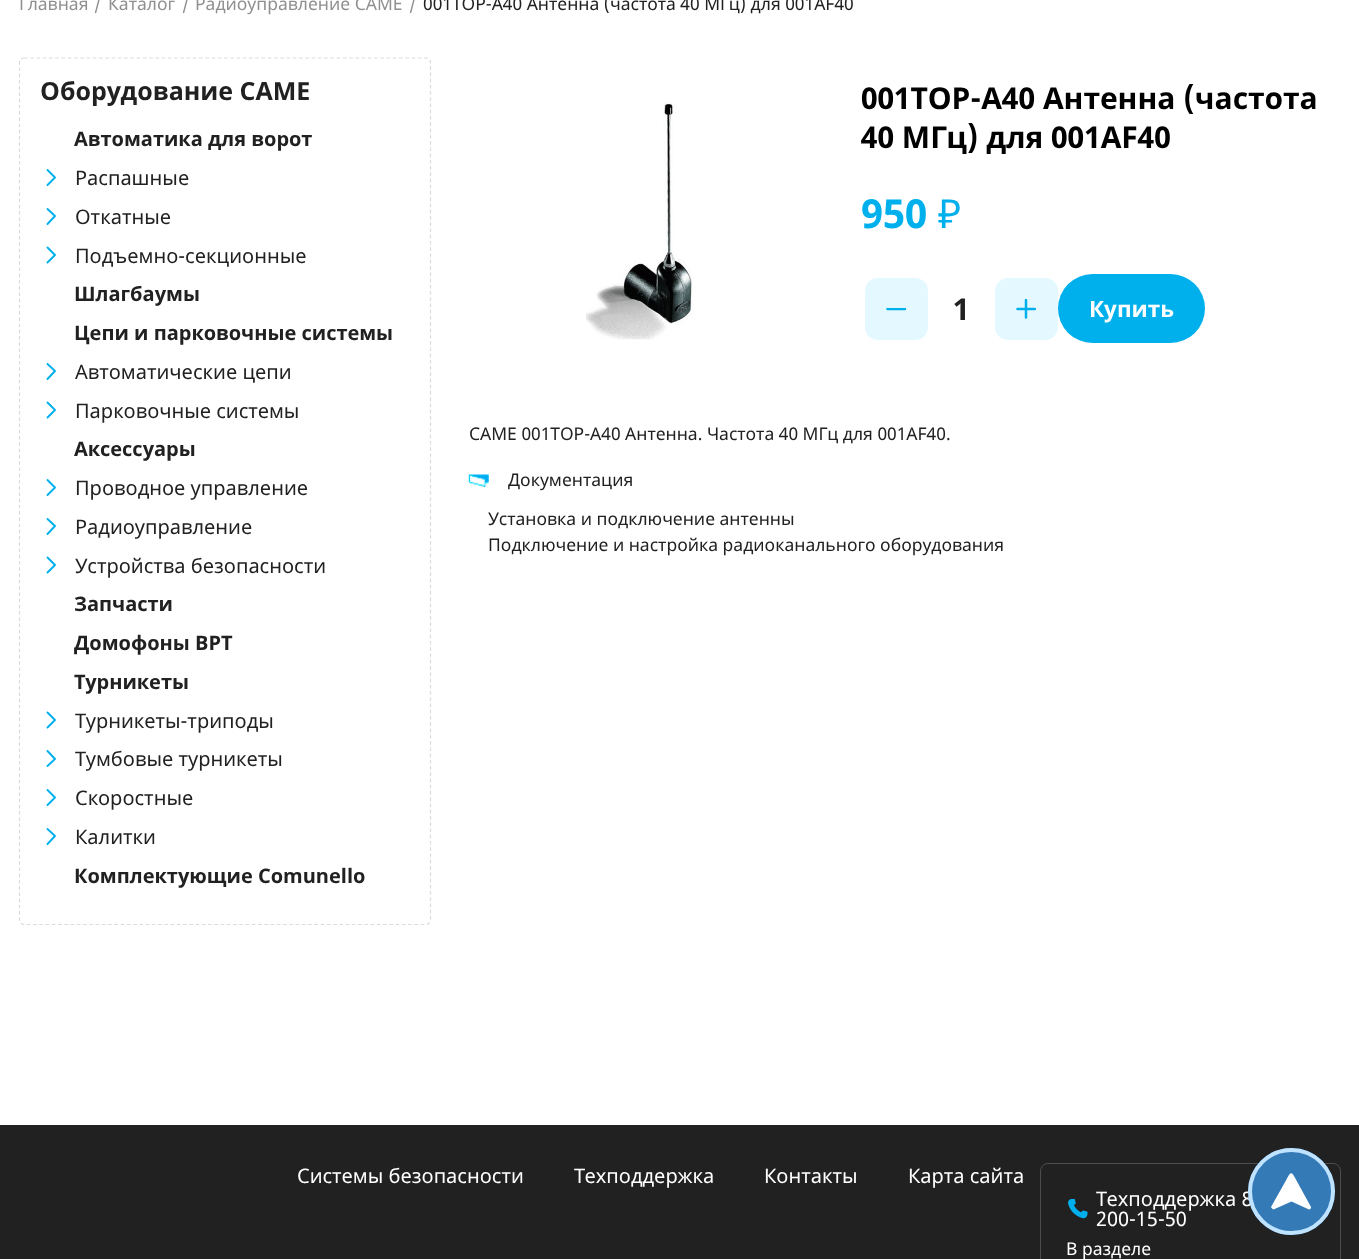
<svg xmlns="http://www.w3.org/2000/svg" width="1359" height="1259" viewBox="0 0 1359 1259">
  <defs>
    <clipPath id="clip1"><rect x="886" y="308" width="20" height="3"/></clipPath>
    <clipPath id="clip2"><rect x="1016" y="299" width="20" height="20"/></clipPath>
  </defs>
  <rect width="100%" height="100%" fill="rgb(255,255,255)"/>
  <g font-family="Noto Sans" font-size="17.5" fill="rgb(144,144,144)">
    <text x="19" y="10">Главная</text>
    <text x="94" y="10">/</text>
    <text x="108" y="10">Каталог</text>
    <text x="182" y="10">/</text>
    <text x="195" y="10">Радиоуправление CAME</text>
    <text x="409" y="10">/</text>
  </g>
  <text x="423" y="10" font-family="Noto Sans" font-size="17.5" fill="rgb(33,33,33)">001TOP-A40 Антенна (частота 40 МГц) для 001AF40</text>
  <path d="M24 58H426C428.5 58 430.5 60 430.5 62.5V920C430.5 922.5 428.5 924.5 426 924.5H24C21.5 924.5 19.5 922.5 19.5 920V62.5C19.5 60 21.5 58 24 58Z" fill="none" stroke="rgb(219,219,219)" stroke-width="1.2" stroke-dasharray="3.75 2.5"/>
  <text x="40" y="100" font-family="Noto Sans" font-size="25" font-weight="bold" fill="rgb(33,33,33)">Оборудование CAME</text>
  <text x="74" y="146" font-family="Noto Sans" font-size="20" font-weight="bold" fill="rgb(33,33,33)">Автоматика для ворот</text>
  <path d="M47.5 170L55 177.5L47.5 185" fill="none" stroke="rgb(0,176,236)" stroke-width="1.9" stroke-linecap="round" stroke-linejoin="round"/>
  <text x="75" y="185" font-family="Noto Sans" font-size="20" fill="rgb(33,33,33)">Распашные</text>
  <path d="M47.5 209L55 216L47.5 224" fill="none" stroke="rgb(0,176,236)" stroke-width="1.9" stroke-linecap="round" stroke-linejoin="round"/>
  <text x="75" y="224" font-family="Noto Sans" font-size="20" fill="rgb(33,33,33)">Откатные</text>
  <path d="M47.5 247.5L55 255L47.5 262.5" fill="none" stroke="rgb(0,176,236)" stroke-width="1.9" stroke-linecap="round" stroke-linejoin="round"/>
  <text x="75" y="263" font-family="Noto Sans" font-size="20" fill="rgb(33,33,33)">Подъемно-секционные</text>
  <g font-family="Noto Sans" font-size="20" font-weight="bold" fill="rgb(33,33,33)">
    <text>
      <tspan x="74" y="301">Шлагбаумы</tspan>
      <tspan x="74" y="340">Цепи и парковочные системы</tspan>
    </text>
  </g>
  <path d="M47.5 364L55 371L47.5 379" fill="none" stroke="rgb(0,176,236)" stroke-width="1.9" stroke-linecap="round" stroke-linejoin="round"/>
  <text x="75" y="379" font-family="Noto Sans" font-size="20" fill="rgb(33,33,33)">Автоматические цепи</text>
  <path d="M47.5 402.5L55 410L47.5 417.5" fill="none" stroke="rgb(0,176,236)" stroke-width="1.9" stroke-linecap="round" stroke-linejoin="round"/>
  <text x="75" y="418" font-family="Noto Sans" font-size="20" fill="rgb(33,33,33)">Парковочные системы</text>
  <text x="74" y="456" font-family="Noto Sans" font-size="20" font-weight="bold" fill="rgb(33,33,33)">Аксессуары</text>
  <path d="M47.5 480L55 487.5L47.5 495" fill="none" stroke="rgb(0,176,236)" stroke-width="1.9" stroke-linecap="round" stroke-linejoin="round"/>
  <text x="75" y="495" font-family="Noto Sans" font-size="20" fill="rgb(33,33,33)">Проводное управление</text>
  <path d="M47.5 519L55 526L47.5 534" fill="none" stroke="rgb(0,176,236)" stroke-width="1.9" stroke-linecap="round" stroke-linejoin="round"/>
  <text x="75" y="534" font-family="Noto Sans" font-size="20" fill="rgb(33,33,33)">Радиоуправление</text>
  <path d="M47.5 557.5L55 565L47.5 572.5" fill="none" stroke="rgb(0,176,236)" stroke-width="1.9" stroke-linecap="round" stroke-linejoin="round"/>
  <text x="75" y="573" font-family="Noto Sans" font-size="20" fill="rgb(33,33,33)">Устройства безопасности</text>
  <g font-family="Noto Sans" font-size="20" font-weight="bold" fill="rgb(33,33,33)">
    <text>
      <tspan x="74" y="611">Запчасти</tspan>
      <tspan x="74" y="650">Домофоны BPT</tspan>
      <tspan x="74" y="689">Турникеты</tspan>
    </text>
  </g>
  <path d="M47.5 712.5L55 720L47.5 727.5" fill="none" stroke="rgb(0,176,236)" stroke-width="1.9" stroke-linecap="round" stroke-linejoin="round"/>
  <text x="75" y="728" font-family="Noto Sans" font-size="20" fill="rgb(33,33,33)">Турникеты-триподы</text>
  <path d="M47.5 751L55 759L47.5 766" fill="none" stroke="rgb(0,176,236)" stroke-width="1.9" stroke-linecap="round" stroke-linejoin="round"/>
  <text x="75" y="766" font-family="Noto Sans" font-size="20" fill="rgb(33,33,33)">Тумбовые турникеты</text>
  <path d="M47.5 790L55 797.5L47.5 805" fill="none" stroke="rgb(0,176,236)" stroke-width="1.9" stroke-linecap="round" stroke-linejoin="round"/>
  <text x="75" y="805" font-family="Noto Sans" font-size="20" fill="rgb(33,33,33)">Скоростные</text>
  <path d="M47.5 829L55 836L47.5 844" fill="none" stroke="rgb(0,176,236)" stroke-width="1.9" stroke-linecap="round" stroke-linejoin="round"/>
  <text x="75" y="844" font-family="Noto Sans" font-size="20" fill="rgb(33,33,33)">Калитки</text>
  <text x="74" y="883" font-family="Noto Sans" font-size="20" font-weight="bold" fill="rgb(33,33,33)">Комплектующие Comunello</text>
  <image x="586" y="102" width="108" height="238" href="pic1.png"/>
  <g font-family="Noto Sans" font-size="30" font-weight="bold" fill="rgb(0,0,0)">
    <text>
      <tspan x="861" y="109">001TOP-A40 Антенна (частота</tspan>
      <tspan x="861" y="148">40 МГц) для 001AF40</tspan>
    </text>
  </g>
  <text x="861" y="228" font-family="Noto Sans" font-size="40" font-weight="bold" fill="rgb(0,176,236)">950</text>
  <text x="938" y="228" font-family="'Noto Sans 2'" font-size="40" fill="rgb(0,176,236)">₽</text>
  <rect x="865" y="278" width="63" height="62" rx="13" fill="rgb(228,248,255)"/>
  <g clip-path="url(#clip1)">
    <path d="M887.5 309H905" fill="none" stroke="rgb(0,176,236)" stroke-width="2.5" stroke-linecap="round" stroke-linejoin="round"/>
  </g>
  <text x="953" y="320" font-family="Noto Sans" font-size="30" font-weight="bold" fill="rgb(33,33,33)">1</text>
  <rect x="995" y="278" width="63" height="62" rx="13" fill="rgb(228,248,255)"/>
  <g clip-path="url(#clip2)">
    <path d="M1026 300V317.5M1017.5 309H1035" fill="none" stroke="rgb(0,176,236)" stroke-width="2.5" stroke-linecap="round" stroke-linejoin="round"/>
  </g>
  <rect x="1058" y="274" width="147" height="69" rx="34.5" fill="rgb(0,176,236)"/>
  <text x="1089" y="317" font-family="Noto Sans" font-size="22.5" font-weight="bold" fill="rgb(255,255,255)">Купить</text>
  <text x="469" y="440" font-family="Noto Sans" font-size="17.5" fill="rgb(33,33,33)">CAME 001TOP-A40 Антенна. Частота 40 МГц для 001AF40.</text>
  <image x="468" y="474" width="21" height="13" href="pic2.png"/>
  <g font-family="Noto Sans" font-size="17.5" fill="rgb(33,33,33)">
    <text x="508" y="486">Документация</text>
    <text>
      <tspan x="488" y="525">Установка и подключение антенны</tspan>
      <tspan x="488" y="551">Подключение и настройка радиоканального оборудования</tspan>
    </text>
  </g>
  <rect x="0" y="1125" width="1359" height="134" fill="rgb(33,33,33)"/>
  <g font-family="Noto Sans" font-size="20" fill="rgb(255,255,255)">
    <text x="297" y="1183">Системы безопасности</text>
    <text x="574" y="1183">Техподдержка</text>
    <text x="764" y="1183">Контакты</text>
    <text x="908" y="1183">Карта сайта</text>
  </g>
  <rect x="1040.5" y="1163.5" width="300" height="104" rx="7.5" fill="none" stroke="rgb(77,77,77)"/>
  <image x="1068" y="1199" width="20" height="20" href="pic3.png"/>
  <g font-family="Noto Sans" font-size="20" fill="rgb(255,255,255)">
    <text>
      <tspan x="1096" y="1206">Техподдержка 8</tspan>
      <tspan x="1096" y="1226">200-15-50</tspan>
    </text>
  </g>
  <text x="1066" y="1255" font-family="Noto Sans" font-size="17.5" fill="rgb(255,255,255)">В разделе</text>
  <circle cx="1291.5" cy="1191.5" r="43.5" fill="rgb(51,122,183)"/>
  <path d="M1311 1207C1311 1208.5 1310.5 1209.5 1309 1209.5L1291.5 1201.5L1273.5 1209.5L1272 1208.5L1271 1207L1286.5 1179.5C1289 1175.5 1290.5 1170 1294 1176Z" fill="rgb(255,255,255)"/>
  <circle cx="1291.5" cy="1191.5" r="41.5" fill="none" stroke="rgb(191,226,255)" stroke-width="4"/>
</svg>
